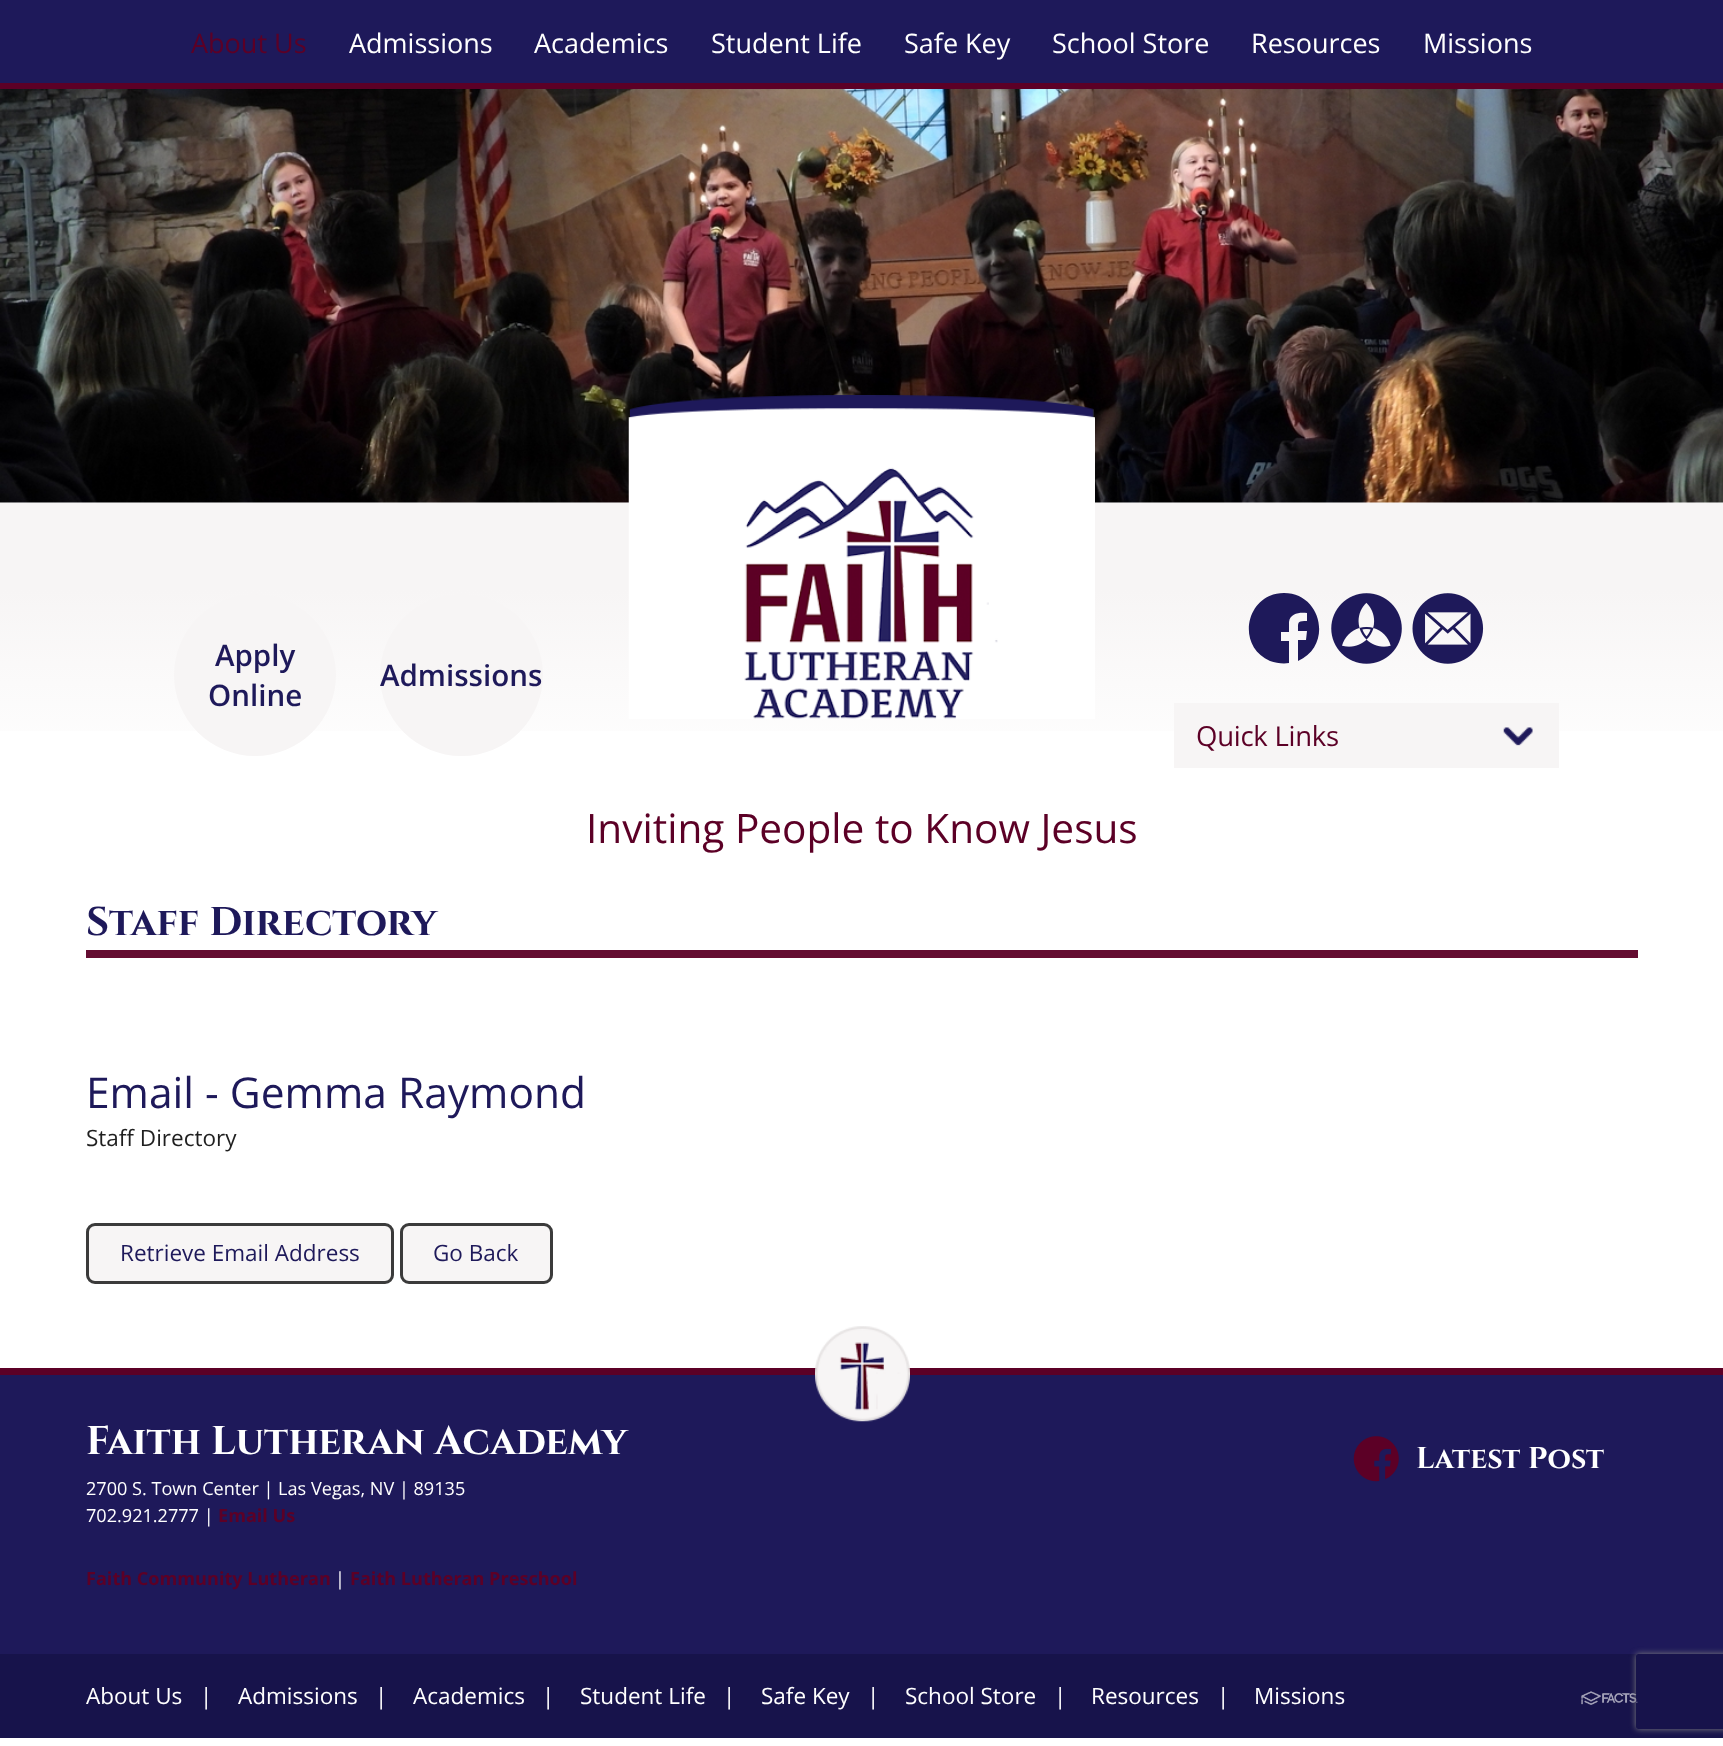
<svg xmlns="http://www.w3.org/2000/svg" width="1723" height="1746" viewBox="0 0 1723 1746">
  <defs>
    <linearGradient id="g1" gradientUnits="userSpaceOnUse" x1="862" y1="502" x2="862" y2="896"><stop offset="0.22" stop-color="rgb(247,245,245)"/><stop offset="0.7" stop-color="rgb(255,255,255)"/></linearGradient>
    <clipPath id="clip1"><path d="M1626 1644H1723V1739H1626ZM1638.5 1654H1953.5C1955 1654 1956 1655 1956 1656.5V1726.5C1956 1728 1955 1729 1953.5 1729H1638.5C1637 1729 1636 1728 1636 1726.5V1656.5C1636 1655 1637 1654 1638.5 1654Z" clip-rule="evenodd"/></clipPath>
  </defs>
  <rect width="100%" height="100%" fill="rgb(255,255,255)"/>
  <rect x="0" y="0" width="1723" height="83" fill="rgb(30,25,90)"/>
  <rect x="0" y="83" width="1723" height="6" fill="rgb(92,0,38)"/>
  <text x="191" y="53" font-family="Open Sans" font-size="27" fill="rgb(92,0,38)">About Us</text>
  <g font-family="Open Sans" font-size="27" fill="rgb(255,255,255)">
    <text x="349" y="53">Admissions</text>
    <text x="534" y="53">Academics</text>
    <text x="711" y="53">Student Life</text>
    <text x="904" y="53">Safe Key</text>
    <text x="1052" y="53">School Store</text>
    <text x="1251" y="53">Resources</text>
    <text x="1423" y="53">Missions</text>
  </g>
  <image x="0" y="89" width="1723" height="414" href="pic1.png"/>
  <rect x="0" y="503" width="1723" height="228" fill="url(#g1)"/>
  <circle cx="255" cy="675" r="81" fill="rgb(247,245,245)"/>
  <g font-family="Open Sans" font-size="29.5" font-weight="600" fill="rgb(30,25,90)">
    <text x="215" y="666">Apply</text>
    <text x="208" y="706">Online</text>
  </g>
  <rect x="380" y="594" width="163" height="162" rx="81" fill="rgb(247,245,245)"/>
  <text x="380" y="686" font-family="Open Sans" font-size="29.5" font-weight="600" fill="rgb(30,25,90)">Admissions</text>
  <image x="628" y="395" width="467" height="324" href="pic2.png"/>
  <path d="M1284 593C1322 593 1333 646 1298 661V640H1306L1307 631H1298C1298 622 1297 621 1307 621V613C1300 612 1290 613 1289 622V632H1281V641H1289V663C1283 664 1276 663 1270 661C1235 646 1246 593 1284 593Z" fill="rgb(30,25,90)"/>
  <image x="1331" y="593" width="71" height="71" href="pic3.png"/>
  <image x="1412" y="593" width="72" height="71" href="pic4.png"/>
  <rect x="1174" y="703" width="385" height="65" fill="rgb(247,245,245)"/>
  <text x="1196" y="746" font-family="Open Sans" font-size="27.5" letter-spacing="-0.25" fill="rgb(92,0,38)">Quick Links</text>
  <image x="1503" y="727" width="30" height="19" href="pic5.png"/>
  <text x="586" y="843" font-family="Open Sans" font-size="40.6" fill="rgb(92,0,38)">Inviting People to Know Jesus</text>
  <rect x="86" y="950" width="1552" height="8" fill="rgb(100,13,49)"/>
  <text x="86" y="935" font-family="Cinzel" font-size="40" font-weight="bold" fill="rgb(30,25,90)">Staff Directory</text>
  <text x="86" y="1108" font-family="Open Sans" font-size="42.5" fill="rgb(30,25,90)">Email - Gemma Raymond</text>
  <text x="86" y="1146" font-family="Open Sans" font-size="22.5" fill="rgb(31,31,31)">Staff Directory</text>
  <rect x="87.5" y="1224.5" width="305" height="58" rx="7.5" fill="rgb(247,245,245)" stroke="rgb(59,59,59)" stroke-width="3"/>
  <text x="120" y="1261" font-family="Open Sans" font-size="22.5" fill="rgb(30,25,90)">Retrieve Email Address</text>
  <rect x="401.5" y="1224.5" width="150" height="58" rx="7.5" fill="rgb(247,245,245)" stroke="rgb(59,59,59)" stroke-width="3"/>
  <text x="433" y="1261" font-family="Open Sans" font-size="22.5" fill="rgb(30,25,90)">Go Back</text>
  <rect x="0" y="1375" width="1723" height="279" fill="rgb(30,25,90)"/>
  <rect x="0" y="1368" width="1723" height="7" fill="rgb(92,0,38)"/>
  <image x="815" y="1326" width="95" height="96" href="pic6.png"/>
  <text x="86" y="1454" font-family="Cinzel" font-size="40" font-weight="bold" fill="rgb(255,255,255)">Faith Lutheran Academy</text>
  <g font-family="Open Sans" font-size="18.1" fill="rgb(255,255,255)">
    <text>
      <tspan x="86" y="1495">2700 S. Town Center | Las Vegas, NV | 89135</tspan>
      <tspan x="86" y="1522">702.921.2777 |</tspan>
    </text>
  </g>
  <g font-family="Open Sans" font-size="18.1" font-weight="bold" fill="rgb(92,0,38)">
    <text x="218" y="1522">Email Us</text>
    <text x="86" y="1585">Faith Community Lutheran</text>
  </g>
  <text x="335" y="1585" font-family="Open Sans" font-size="18.1" fill="rgb(255,255,255)">|</text>
  <text x="350" y="1585" font-family="Open Sans" font-size="18.1" font-weight="bold" fill="rgb(92,0,38)">Faith Lutheran Preschool</text>
  <image x="1353" y="1436" width="46" height="46" href="pic7.png"/>
  <text x="1416" y="1468" font-family="Cinzel" font-size="30" font-weight="bold" fill="rgb(255,255,255)">Latest Post</text>
  <rect x="0" y="1654" width="1723" height="84" fill="rgb(23,19,75)"/>
  <g font-family="Open Sans" font-size="22.5" fill="rgb(255,255,255)">
    <text x="86" y="1704">About Us</text>
    <text x="200" y="1704">|</text>
    <text x="238" y="1704">Admissions</text>
    <text x="375" y="1704">|</text>
    <text x="413" y="1704">Academics</text>
    <text x="542" y="1704">|</text>
    <text x="580" y="1704">Student Life</text>
    <text x="723" y="1704">|</text>
    <text x="761" y="1704">Safe Key</text>
    <text x="867" y="1704">|</text>
    <text x="905" y="1704">School Store</text>
    <text x="1054" y="1704">|</text>
    <text x="1091" y="1704">Resources</text>
    <text x="1217" y="1704">|</text>
    <text x="1254" y="1704">Missions</text>
  </g>
  <image x="1581" y="1691" width="57" height="14" href="pic8.png"/>
  <g clip-path="url(#clip1)">
    <rect x="1636" y="1654" width="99" height="75" rx="2.5" fill="rgb(128,128,128)" filter="blur(3px)"/>
  </g>
</svg>
